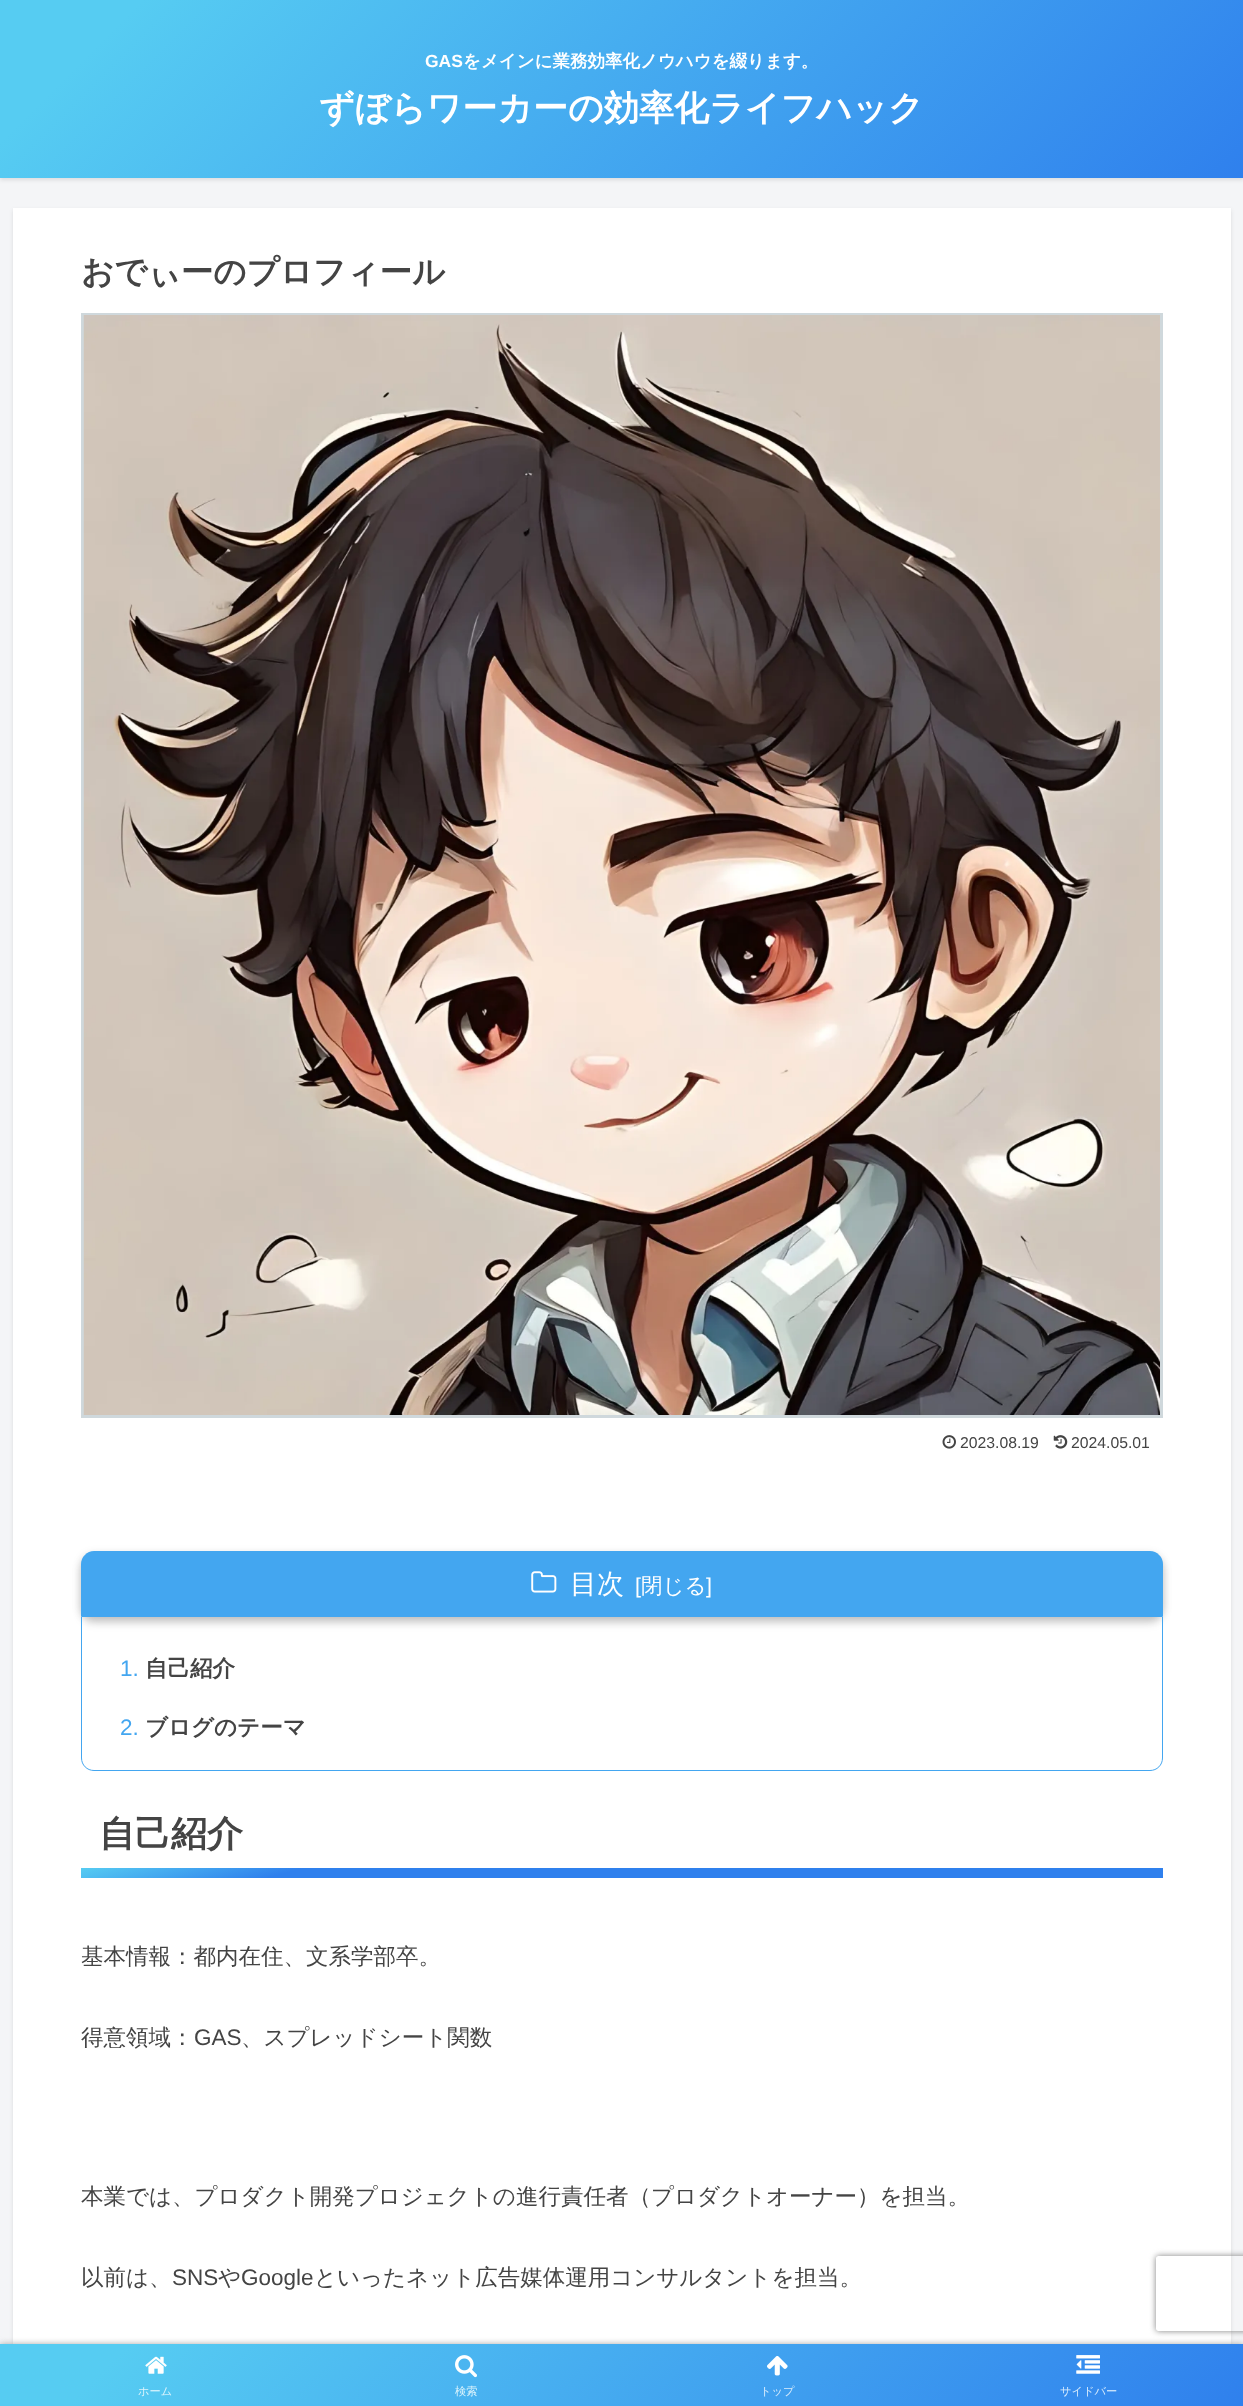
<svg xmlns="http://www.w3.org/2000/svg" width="1243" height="2406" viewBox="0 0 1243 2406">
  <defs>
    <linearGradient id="g1" gradientUnits="userSpaceOnUse" x1="267" y1="-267" x2="977" y2="444"><stop offset="0.1" stop-color="rgb(86,204,242)"/><stop offset="1" stop-color="rgb(47,128,237)"/></linearGradient>
    <linearGradient id="g2" gradientUnits="userSpaceOnUse" x1="584" y1="1733" x2="659" y2="2012"><stop offset="0" stop-color="rgb(86,204,242)"/><stop offset="0.2" stop-color="rgb(47,128,237)"/></linearGradient>
    <linearGradient id="g3" gradientUnits="userSpaceOnUse" x1="295" y1="2048" x2="948" y2="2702"><stop offset="0.1" stop-color="rgb(86,204,242)"/><stop offset="1" stop-color="rgb(47,128,237)"/></linearGradient>
    <clipPath id="clip1"><path d="M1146 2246H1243V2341H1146ZM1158.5 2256H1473.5C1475 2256 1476 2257 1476 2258.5V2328.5C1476 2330 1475 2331 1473.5 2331H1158.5C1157 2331 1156 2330 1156 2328.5V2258.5C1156 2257 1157 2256 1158.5 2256Z" clip-rule="evenodd"/></clipPath>
  </defs>
  <rect width="100%" height="100%" fill="rgb(244,245,247)"/>
  <rect x="0" y="3" width="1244" height="177" fill="rgba(0,0,0,0.1)" filter="blur(2px)"/>
  <rect x="0" y="0" width="1243" height="178" fill="url(#g1)"/>
  <text x="425" y="67" font-family="Liberation Sans" font-size="17.5" font-weight="bold" fill="rgb(255,255,255)">GAS</text>
  <text x="463" y="67" font-family="WenQuanYi Zen Hei" font-size="17.5" font-weight="bold" fill="rgb(255,255,255)">をメインに業務効率化ノウハウを綴ります。</text>
  <text x="319" y="120" font-family="WenQuanYi Zen Hei" font-size="35" font-weight="bold" fill="rgb(255,255,255)">ずぼらワーカーの効率化ライフハック</text>
  <rect x="13" y="210" width="1218" height="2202" fill="rgba(0,0,0,0.1)" filter="blur(2px)"/>
  <rect x="13" y="208" width="1218" height="2136" fill="rgb(255,255,255)"/>
  <text x="81" y="283" font-family="WenQuanYi Zen Hei" font-size="32.5" font-weight="bold" fill="rgb(68,68,68)">おでぃーのプロフィール</text>
  <rect x="82.5" y="314.5" width="1079" height="1102" fill="none" stroke="rgb(207,216,220)" stroke-width="3"/>
  <image x="83" y="315" width="1077" height="1100" href="pic1.png"/>
  <image x="942" y="1435" width="14" height="14" href="pic2.png"/>
  <text x="960" y="1448" font-family="Liberation Sans" font-size="15.75" fill="rgb(68,68,68)">2023.08.19</text>
  <image x="1053" y="1435" width="15" height="14" href="pic3.png"/>
  <text x="1071" y="1448" font-family="Liberation Sans" font-size="15.75" fill="rgb(68,68,68)">2024.05.01</text>
  <rect x="81" y="1558" width="1082" height="65" rx="13" fill="rgba(0,0,0,0.15)" filter="blur(4px)"/>
  <rect x="81" y="1554" width="1082" height="65" rx="13" fill="rgba(0,0,0,0.15)" filter="blur(4.5px)"/>
  <path d="M94 1551H1150C1157 1551 1163 1557 1163 1564V1616H81V1564C81 1557 87 1551 94 1551Z" fill="rgb(67,166,240)"/>
  <image x="531" y="1571" width="26" height="22" href="pic4.png"/>
  <text x="570" y="1593" font-family="WenQuanYi Zen Hei" font-size="27" font-weight="500" fill="rgb(255,255,255)">目次</text>
  <text x="635" y="1593" font-family="Liberation Sans" font-size="21.5" fill="rgb(255,255,255)">[</text>
  <text x="641" y="1593" font-family="WenQuanYi Zen Hei" font-size="21.5" font-weight="500" fill="rgb(255,255,255)">閉じる</text>
  <text x="706" y="1593" font-family="Liberation Sans" font-size="21.5" fill="rgb(255,255,255)">]</text>
  <path d="M81.5 1616.5H1162.5V1758C1162.5 1765 1157 1770.5 1150 1770.5H94C87 1770.5 81.5 1765 81.5 1758Z" fill="none" stroke="rgb(67,166,240)"/>
  <text x="120" y="1676" font-family="Liberation Sans" font-size="22.5" fill="rgb(67,166,240)">1.</text>
  <text x="145" y="1676" font-family="WenQuanYi Zen Hei" font-size="22.5" font-weight="bold" fill="rgb(68,68,68)">自己紹介</text>
  <text x="120" y="1735" font-family="Liberation Sans" font-size="22.5" fill="rgb(67,166,240)">2.</text>
  <text x="145" y="1735" font-family="WenQuanYi Zen Hei" font-size="22.5" font-weight="bold" fill="rgb(68,68,68)">ブログのテーマ</text>
  <text x="99" y="1846" font-family="WenQuanYi Zen Hei" font-size="36" font-weight="bold" fill="rgb(68,68,68)">自己紹介</text>
  <rect x="81" y="1868" width="1082" height="10" fill="url(#g2)"/>
  <g font-family="WenQuanYi Zen Hei" font-size="22.5" font-weight="500" fill="rgb(68,68,68)">
    <text x="81" y="1964">基本情報：都内在住、文系学部卒。</text>
    <text x="81" y="2045">得意領域：</text>
  </g>
  <text x="194" y="2045" font-family="Liberation Sans" font-size="22.5" fill="rgb(68,68,68)">GAS</text>
  <g font-family="WenQuanYi Zen Hei" font-size="22.5" font-weight="500" fill="rgb(68,68,68)">
    <text x="241" y="2045">、スプレッドシート関数</text>
    <text x="81" y="2204">本業では、プロダクト開発プロジェクトの進行責任者（プロダクトオーナー）を担当。</text>
    <text x="81" y="2285">以前は、</text>
  </g>
  <text x="172" y="2285" font-family="Liberation Sans" font-size="22.5" fill="rgb(68,68,68)">SNS</text>
  <text x="218" y="2285" font-family="WenQuanYi Zen Hei" font-size="22.5" font-weight="500" fill="rgb(68,68,68)">や</text>
  <text x="241" y="2285" font-family="Liberation Sans" font-size="22.5" fill="rgb(68,68,68)">Google</text>
  <text x="314" y="2285" font-family="WenQuanYi Zen Hei" font-size="22.5" font-weight="500" fill="rgb(68,68,68)">といったネット広告媒体運用コンサルタントを担当。</text>
  <rect x="0" y="2344" width="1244" height="62" fill="rgb(169,169,169)" filter="blur(3px)"/>
  <rect x="0" y="2344" width="1243" height="62" fill="url(#g3)"/>
  <image x="145" y="2356" width="22" height="18" href="pic5.png"/>
  <text x="138" y="2395" font-family="WenQuanYi Zen Hei" font-size="11.25" font-weight="500" fill="rgb(221,244,252)">ホーム</text>
  <image x="455" y="2355" width="22" height="23" href="pic6.png"/>
  <text x="455" y="2395" font-family="WenQuanYi Zen Hei" font-size="11.25" font-weight="500" fill="rgb(221,244,252)">検索</text>
  <image x="767" y="2356" width="21" height="20" href="pic7.png"/>
  <text x="760" y="2395" font-family="WenQuanYi Zen Hei" font-size="11.25" font-weight="500" fill="rgb(217,236,252)">トップ</text>
  <image x="1076" y="2355" width="24" height="19" href="pic8.png"/>
  <text x="1060" y="2395" font-family="WenQuanYi Zen Hei" font-size="11.25" font-weight="500" fill="rgb(217,236,252)">サイドバー</text>
  <g clip-path="url(#clip1)">
    <rect x="1156" y="2256" width="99" height="75" rx="2.5" fill="rgb(128,128,128)" filter="blur(3px)"/>
  </g>
</svg>
